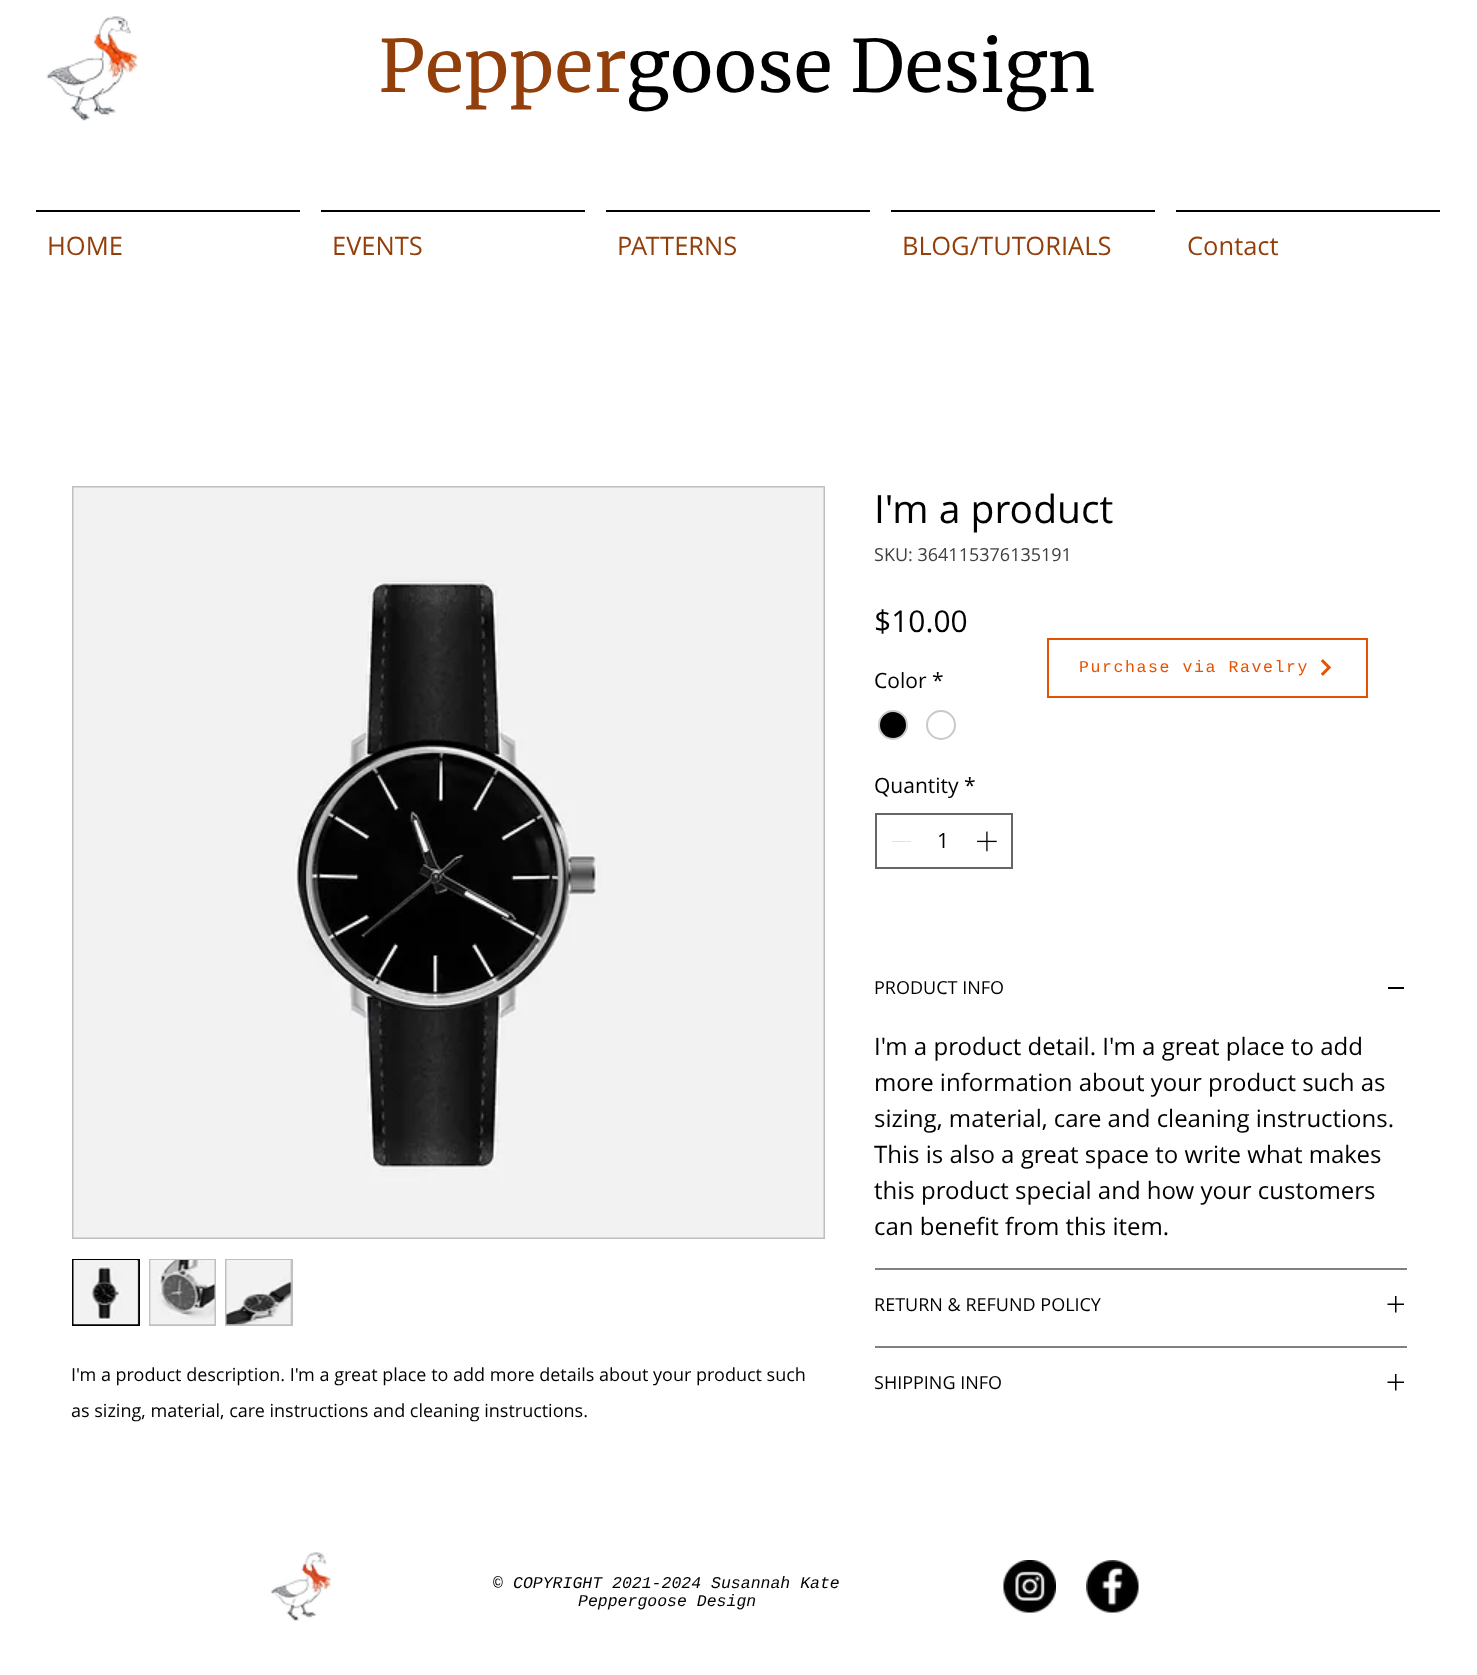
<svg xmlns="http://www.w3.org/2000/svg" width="1477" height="1675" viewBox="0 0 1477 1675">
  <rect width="100%" height="100%" fill="rgb(255,255,255)"/>
  <image x="46" y="16" width="93" height="105" href="pic1.png"/>
  <text x="378" y="92" font-family="Merriweather" font-size="72" fill="rgb(147,63,11)">Pepper</text>
  <text x="626" y="92" font-family="Merriweather" font-size="72" fill="rgb(0,0,0)">goose Design</text>
  <rect x="36" y="210" width="264" height="2" fill="rgb(0,0,0)"/>
  <text x="47" y="255" font-family="Open Sans" font-size="25.5" fill="rgb(147,63,11)">HOME</text>
  <rect x="321" y="210" width="264" height="2" fill="rgb(0,0,0)"/>
  <text x="332" y="255" font-family="Open Sans" font-size="25.5" fill="rgb(147,63,11)">EVENTS</text>
  <rect x="606" y="210" width="264" height="2" fill="rgb(0,0,0)"/>
  <text x="617" y="255" font-family="Open Sans" font-size="25.5" fill="rgb(147,63,11)">PATTERNS</text>
  <rect x="891" y="210" width="264" height="2" fill="rgb(0,0,0)"/>
  <text x="902" y="255" font-family="Open Sans" font-size="25.5" fill="rgb(147,63,11)">BLOG/TUTORIALS</text>
  <rect x="1176" y="210" width="264" height="2" fill="rgb(0,0,0)"/>
  <text x="1187" y="255" font-family="Open Sans" font-size="25.5" fill="rgb(147,63,11)">Contact</text>
  <rect x="73" y="487" width="751" height="751" fill="none" stroke="rgb(191,191,191)" stroke-width="2"/>
  <image x="73" y="487" width="751" height="751" href="pic2.png"/>
  <rect x="137" y="1261" width="1" height="63" fill="rgb(191,191,191)"/>
  <rect x="73" y="1260" width="66" height="65" fill="none" stroke="rgb(0,0,0)" stroke-width="2"/>
  <image x="73" y="1260" width="66" height="65" href="pic3.png"/>
  <rect x="149" y="1259" width="67" height="67" fill="rgb(191,191,191)"/>
  <image x="149" y="1260" width="66" height="65" href="pic4.png"/>
  <rect x="225" y="1259" width="68" height="67" fill="rgb(191,191,191)"/>
  <image x="226" y="1260" width="66" height="65" href="pic5.png"/>
  <g font-family="Open Sans" font-size="18" fill="rgb(0,0,0)">
    <text x="71" y="1381">I'm a product description. I'm a great place to add more details about your product such</text>
    <text x="71" y="1417">as sizing, material, care instructions and cleaning instructions.</text>
  </g>
  <text x="874" y="523" font-family="Open Sans" font-size="39" fill="rgb(0,0,0)">I'm a product</text>
  <text x="874" y="561" font-family="Open Sans" font-size="18" fill="rgb(64,64,64)">SKU: 364115376135191</text>
  <text x="874" y="632" font-family="Open Sans" font-size="30" fill="rgb(0,0,0)">$10.00</text>
  <g font-family="Open Sans" font-size="21" fill="rgb(0,0,0)">
    <text x="874" y="688">Color</text>
    <text x="932" y="688">*</text>
  </g>
  <circle cx="893" cy="725" r="14" fill="rgb(0,0,0)" stroke="rgb(201,201,201)" stroke-width="2"/>
  <circle cx="941" cy="725" r="14" fill="none" stroke="rgb(201,201,201)" stroke-width="2"/>
  <g font-family="Open Sans" font-size="21" fill="rgb(0,0,0)">
    <text x="874" y="793">Quantity</text>
    <text x="964" y="793">*</text>
  </g>
  <rect x="876" y="814" width="136" height="54" fill="none" stroke="rgb(102,102,102)" stroke-width="2"/>
  <rect x="892" y="841" width="19" height="1" fill="rgb(227,227,227)"/>
  <text x="937" y="848" font-family="Open Sans" font-size="21" fill="rgb(0,0,0)">1</text>
  <image x="977" y="831" width="20" height="21" href="pic6.png"/>
  <rect x="875" y="1268" width="532" height="2" fill="rgb(128,128,128)"/>
  <text x="874" y="994" font-family="Open Sans" font-size="18" fill="rgb(0,0,0)">PRODUCT INFO</text>
  <rect x="1388" y="987" width="16" height="2" fill="rgb(0,0,0)"/>
  <g font-family="Open Sans" font-size="24" fill="rgb(0,0,0)">
    <text>
      <tspan x="874" y="1055">I'm a product detail. I'm a great place to add</tspan>
      <tspan x="874" y="1091">more information about your product such as</tspan>
      <tspan x="874" y="1127">sizing, material, care and cleaning instructions.</tspan>
      <tspan x="874" y="1163">This is also a great space to write what makes</tspan>
      <tspan x="874" y="1199">this product special and how your customers</tspan>
      <tspan x="874" y="1235">can benefit from this item.</tspan>
    </text>
  </g>
  <rect x="875" y="1346" width="532" height="2" fill="rgb(128,128,128)"/>
  <text x="874" y="1311" font-family="Open Sans" font-size="18" fill="rgb(0,0,0)">RETURN &amp; REFUND POLICY</text>
  <image x="1387" y="1296" width="17" height="17" href="pic7.png"/>
  <text x="874" y="1389" font-family="Open Sans" font-size="18" fill="rgb(0,0,0)">SHIPPING INFO</text>
  <image x="1387" y="1374" width="17" height="17" href="pic7.png"/>
  <rect x="1048" y="639" width="319" height="58" fill="none" stroke="rgb(231,81,1)" stroke-width="2"/>
  <text x="1079" y="672" font-family="Liberation Mono" font-size="16.5" letter-spacing="1.6" fill="rgb(231,81,1)">Purchase via Ravelry</text>
  <image x="1321" y="659" width="10" height="17" href="pic8.png"/>
  <image x="271" y="1552" width="61" height="69" href="pic9.png"/>
  <text x="493" y="1588" font-family="Liberation Mono" font-size="16.5" fill="rgb(0,0,0)">©</text>
  <g font-family="Liberation Mono" font-size="16.5" font-style="italic" fill="rgb(0,0,0)">
    <text x="513" y="1588">COPYRIGHT 2021-2024 Susannah Kate</text>
    <text x="578" y="1606">Peppergoose Design</text>
  </g>
  <image x="1003" y="1560" width="53" height="53" href="pic10.png"/>
  <image x="1086" y="1560" width="53" height="53" href="pic11.png"/>
</svg>
